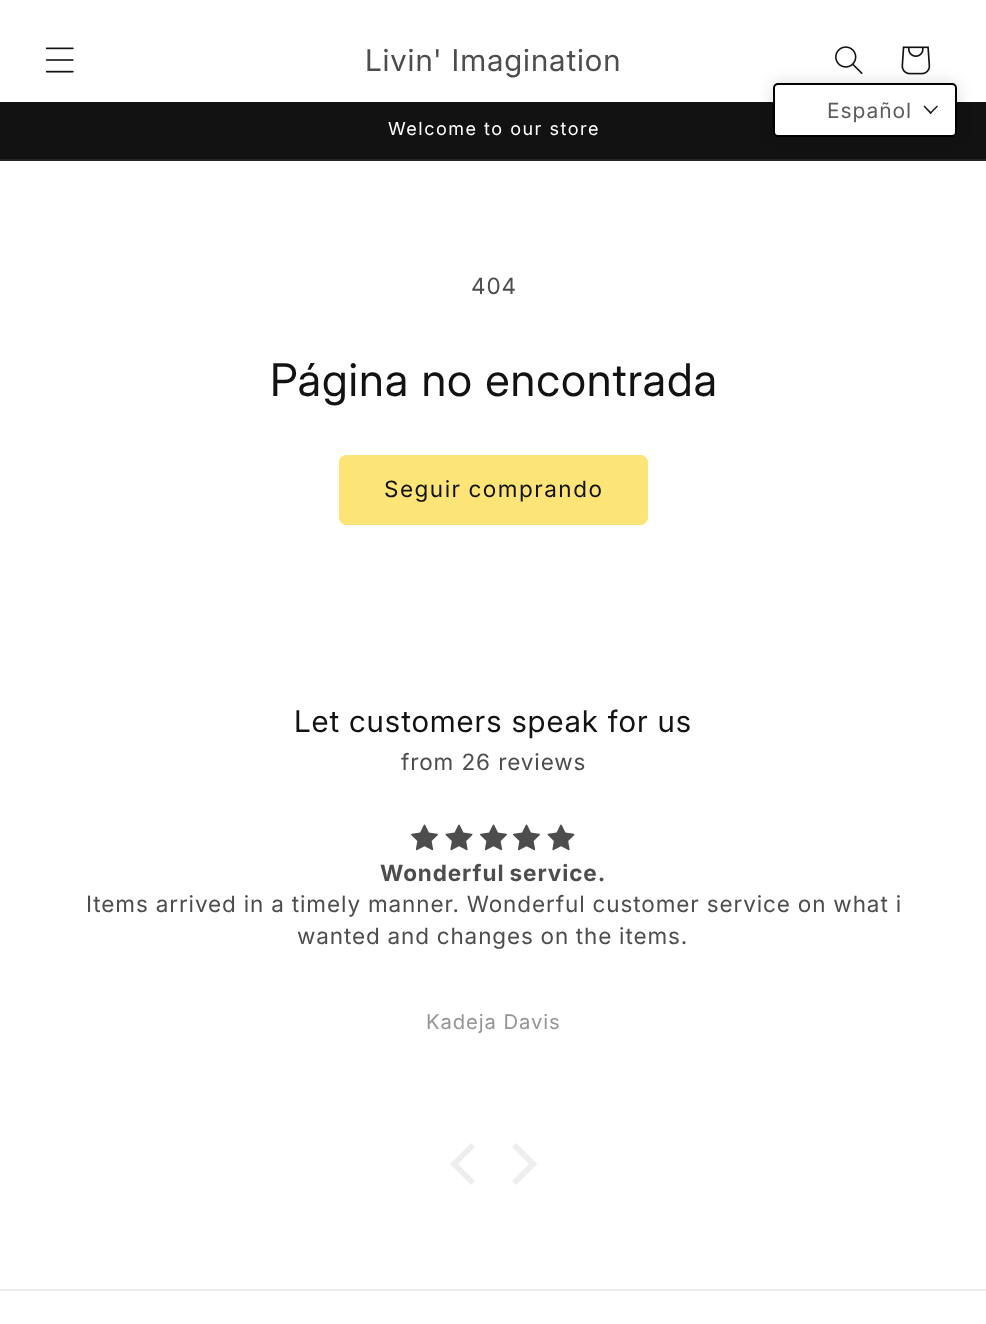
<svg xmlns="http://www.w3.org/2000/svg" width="986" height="1324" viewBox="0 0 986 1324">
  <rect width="100%" height="100%" fill="rgb(255,255,255)"/>
  <image x="45" y="47" width="29" height="26" href="pic1.png"/>
  <text x="365" y="71" font-family="'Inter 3'" font-size="30" letter-spacing="0.9" fill="rgb(77,77,77)">Livin' Imagination</text>
  <image x="835" y="46" width="28" height="28" href="pic2.png"/>
  <image x="901" y="46" width="30" height="29" href="pic3.png"/>
  <rect x="0" y="102" width="986" height="57" fill="rgb(18,18,18)"/>
  <rect x="0" y="159" width="986" height="2" fill="rgb(37,37,37)"/>
  <rect x="773" y="83" width="184" height="54" rx="5" fill="rgba(0,0,0,0.15)" filter="blur(7.5px)"/>
  <rect x="774" y="84" width="182" height="52" rx="4" fill="rgb(255,255,255)" stroke="rgb(0,0,0)" stroke-width="2"/>
  <text x="827" y="118" font-family="Inter" font-size="21" letter-spacing="0.9" fill="rgb(92,92,92)">Español</text>
  <path d="M937 105.5L938 106.5L930.5 114L929.5 113Z" fill="rgb(26,26,26)"/>
  <path d="M924.5 105.5L932 113L930.5 114L923.5 106.5Z" fill="rgb(26,26,26)"/>
  <text x="388" y="135" font-family="Inter" font-size="18" letter-spacing="1.5" fill="rgb(255,255,255)">Welcome to our store</text>
  <text x="471" y="294" font-family="Inter" font-size="22.5" letter-spacing="0.9" fill="rgb(77,77,77)">404</text>
  <text x="270" y="396" font-family="'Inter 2'" font-size="45" letter-spacing="0.9" fill="rgb(18,18,18)">Página no encontrada</text>
  <rect x="339" y="455" width="309" height="70" rx="8" fill="rgb(252,228,119)"/>
  <rect x="340" y="456" width="307" height="68" rx="7" fill="none" stroke="rgb(252,228,119)" stroke-width="2"/>
  <text x="384" y="497" word-spacing="-1" font-family="Inter" font-size="22.5" letter-spacing="1.5" fill="rgb(18,18,18)">Seguir comprando</text>
  <text x="294" y="732" font-family="'Inter 3'" font-size="30" letter-spacing="0.9" fill="rgb(18,18,18)">Let customers speak for us</text>
  <text x="401" y="770" font-family="Inter" font-size="22.5" letter-spacing="0.9" fill="rgb(77,77,77)">from 26 reviews</text>
  <image x="411" y="824" width="27" height="27" href="pic4.png"/>
  <image x="445" y="824" width="28" height="27" href="pic5.png"/>
  <image x="480" y="824" width="27" height="27" href="pic4.png"/>
  <image x="513" y="824" width="27" height="27" href="pic4.png"/>
  <image x="547" y="824" width="28" height="27" href="pic5.png"/>
  <text x="380" y="881" word-spacing="-1" font-family="Inter" font-size="22.5" font-weight="bold" letter-spacing="0.9" fill="rgb(77,77,77)">Wonderful service.</text>
  <g font-family="Inter" font-size="22.5" letter-spacing="0.9" fill="rgb(77,77,77)">
    <text x="86" y="912" word-spacing="-0.25">Items arrived in a timely manner. Wonderful customer service on what i</text>
    <text x="297" y="944" word-spacing="-0.5">wanted and changes on the items.</text>
  </g>
  <text x="426" y="1029" font-family="Inter" font-size="20.25" letter-spacing="0.9" fill="rgb(149,149,149)">Kadeja Davis</text>
  <path d="M450 1164L471 1143L475 1147L454 1168Z" fill="rgb(238,238,238)"/>
  <path d="M450 1164L454 1160L475 1181L471 1185Z" fill="rgb(238,238,238)"/>
  <path d="M512 1147L516 1143L537 1164L533 1168Z" fill="rgb(238,238,238)"/>
  <path d="M512 1181L533 1160L537 1164L516 1185Z" fill="rgb(238,238,238)"/>
  <rect x="0" y="1289" width="986" height="2" fill="rgb(236,236,236)"/>
</svg>
